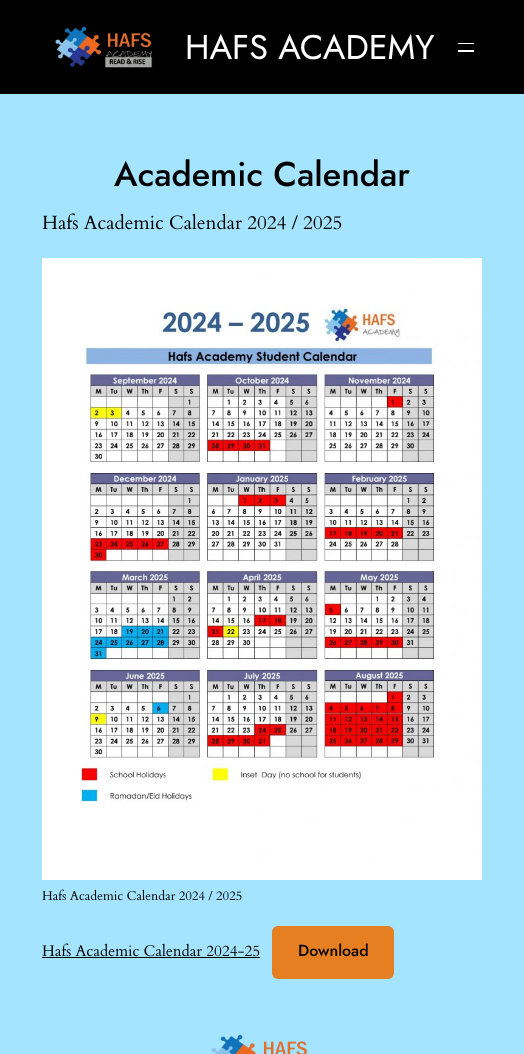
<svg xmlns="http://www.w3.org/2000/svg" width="524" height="1054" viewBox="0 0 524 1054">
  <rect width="100%" height="100%" fill="rgb(164,228,255)"/>
  <rect x="0" y="0" width="524" height="94" fill="rgb(0,0,0)"/>
  <image x="55" y="26" width="98" height="42" href="pic1.png"/>
  <text x="185" y="59" font-family="Jost" font-size="34.25" fill="rgb(255,255,255)">HAFS ACADEMY</text>
  <rect x="458" y="43" width="16" height="1" fill="rgb(255,255,255)"/>
  <rect x="458" y="50" width="16" height="2" fill="rgb(255,255,255)"/>
  <text x="114" y="186" font-family="Jost" font-size="34.25" font-weight="500" fill="rgb(0,0,0)">Academic Calendar</text>
  <image x="42" y="213" width="300" height="17" href="pic2.png"/>
  <image x="42" y="258" width="440" height="622" href="pic3.png"/>
  <image x="42" y="889" width="200" height="12" href="pic4.png"/>
  <image x="42" y="943" width="218" height="14" href="pic5.png"/>
  <rect x="272" y="926" width="122" height="53" rx="6" fill="rgb(230,126,34)"/>
  <text x="298" y="956" font-family="Jost" font-size="16" font-weight="500" fill="rgb(0,0,0)">Download</text>
  <rect x="42" y="957" width="218" height="1" fill="rgb(0,0,0)"/>
  <image x="211" y="1034" width="97" height="20" href="pic6.png"/>
</svg>
